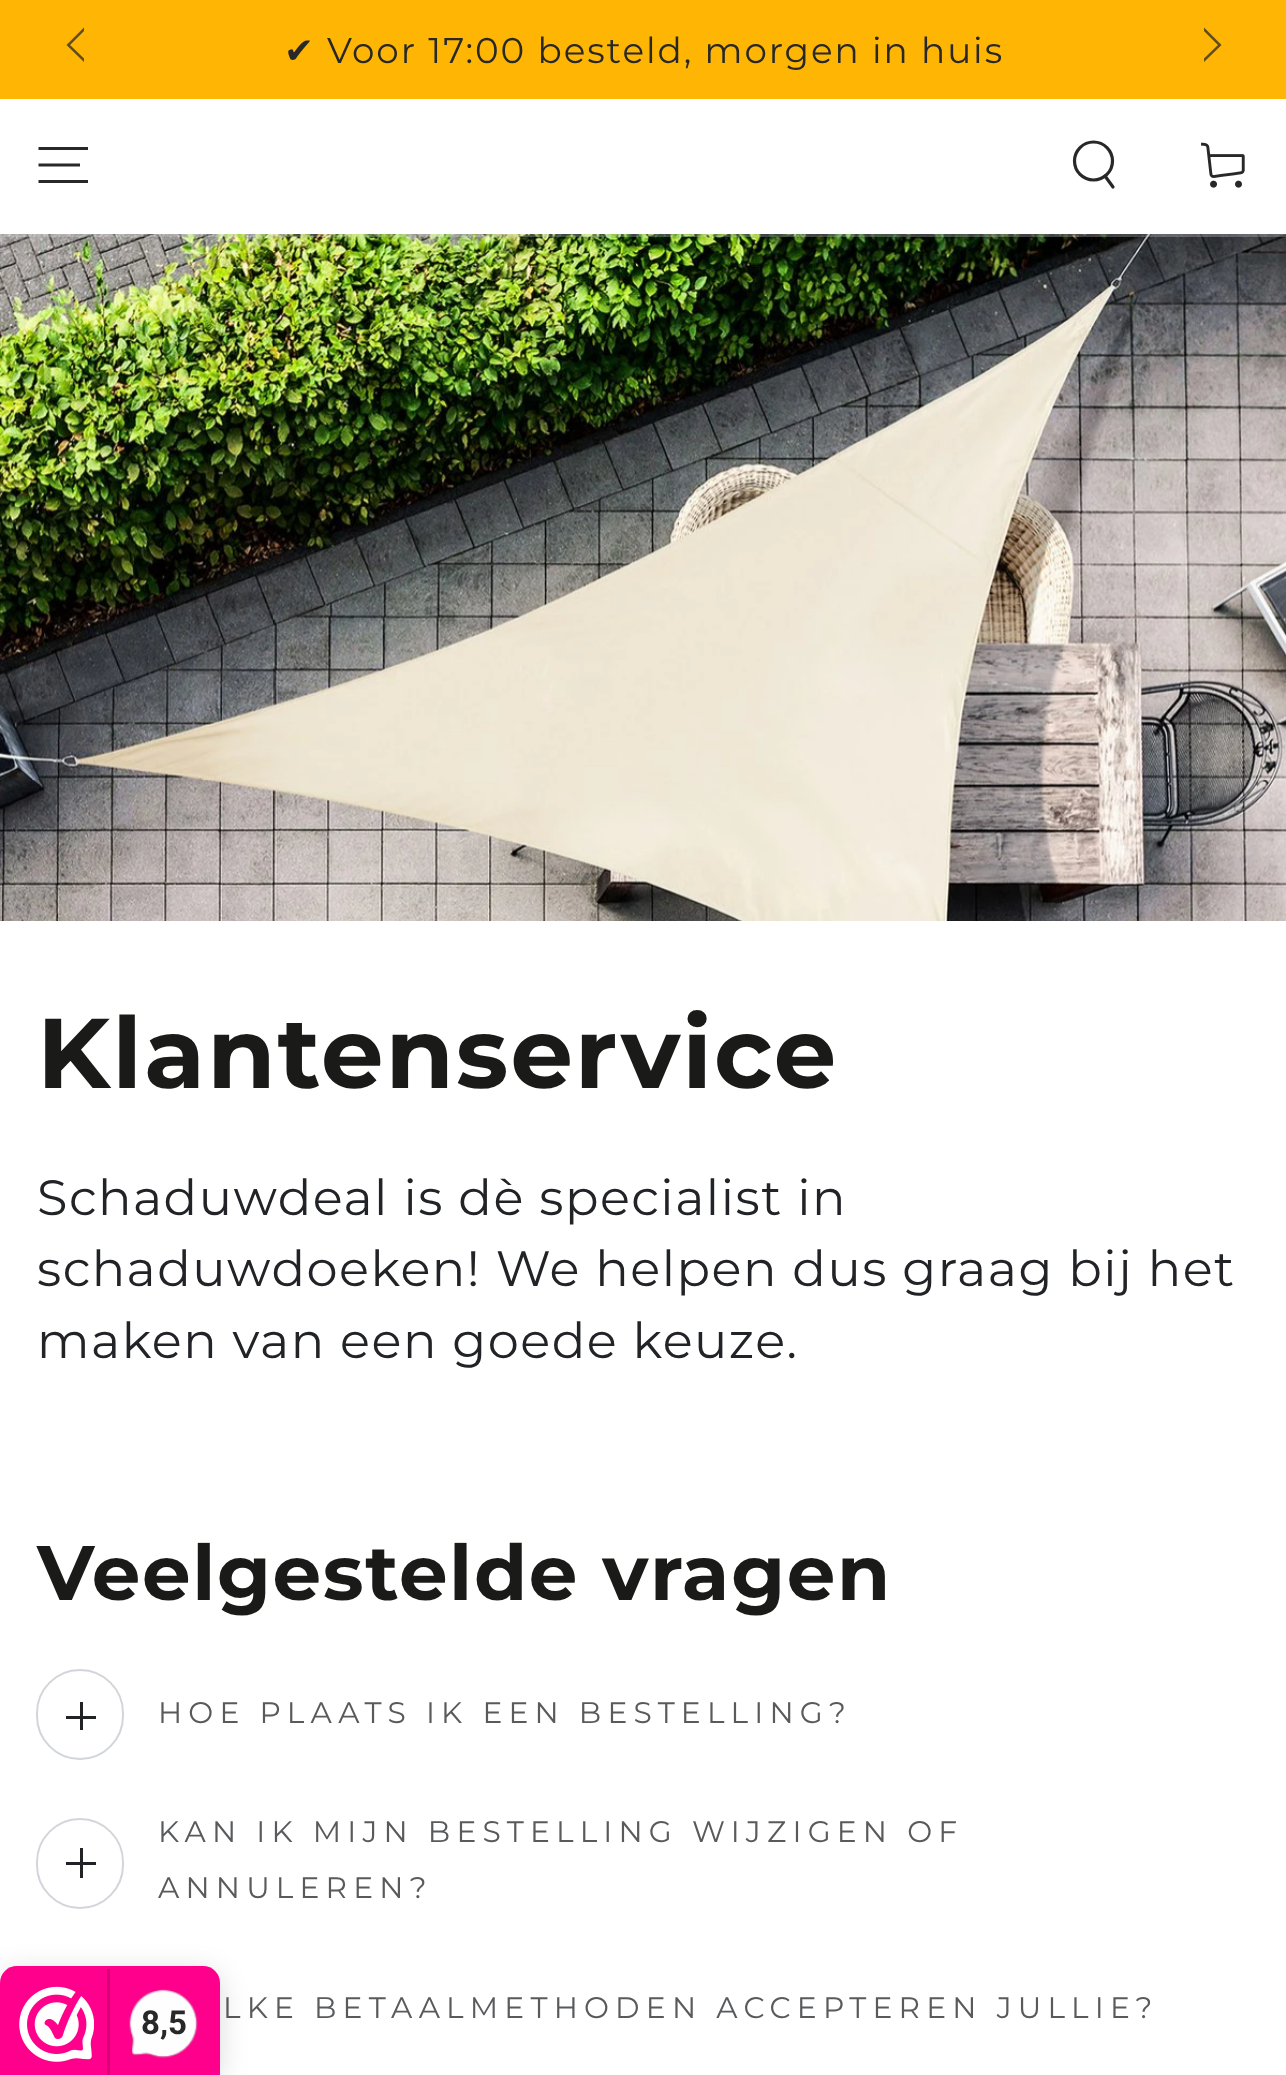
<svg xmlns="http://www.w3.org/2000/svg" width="1286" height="2075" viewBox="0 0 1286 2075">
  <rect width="100%" height="100%" fill="rgb(255,255,255)"/>
  <rect x="0" y="0" width="1286" height="99" fill="rgb(255,181,3)"/>
  <path d="M66.5 45L84 62V58.5L70 45L84 31V27.5Z" fill="rgb(94,75,31)" fill-rule="evenodd"/>
  <path d="M1221.5 45L1204 62V58.5L1218 45L1204 31V27.5Z" fill="rgb(94,75,31)" fill-rule="evenodd"/>
  <text x="284" y="63" font-family="DejaVu Sans" font-size="35.75" letter-spacing="1.95" fill="rgb(40,40,40)">✔</text>
  <text x="327" y="63" font-family="Montserrat" font-size="35.75" letter-spacing="1.95" fill="rgb(40,40,40)">Voor 17:00 besteld, morgen in huis</text>
  <image x="0" y="234" width="1286" height="687" href="pic2.png"/>
  <rect x="0" y="234" width="1286" height="3" fill="rgba(210,213,217,0.3)"/>
  <path d="M38.5 181.5H88M38.5 165H80M38.5 148.5H88" fill="none" stroke="rgb(40,40,40)" stroke-width="2.8"/>
  <circle cx="1093.5" cy="161" r="19" fill="none" stroke="rgb(40,40,40)" stroke-width="3.2"/>
  <path d="M1105 176L1113 187" fill="none" stroke="rgb(40,40,40)" stroke-width="3.2" stroke-linecap="round"/>
  <image x="1201" y="142" width="44" height="46" href="pic1.png"/>
  <text x="37" y="1088" font-family="Montserrat" font-size="99" font-weight="bold" letter-spacing="2" fill="rgb(26,27,24)">Klantenservice</text>
  <g font-family="Montserrat" font-size="49.5" letter-spacing="1.5" fill="rgb(33,35,38)">
    <text>
      <tspan x="37" y="1215">Schaduwdeal is dè specialist in</tspan>
      <tspan x="37" y="1286">schaduwdoeken! We helpen dus graag bij het</tspan>
      <tspan x="37" y="1358">maken van een goede keuze.</tspan>
    </text>
  </g>
  <text x="37" y="1600" font-family="Montserrat" font-size="77" font-weight="bold" letter-spacing="1.6" fill="rgb(26,27,24)">Veelgestelde vragen</text>
  <rect x="37" y="1670" width="86" height="89" rx="43" fill="none" stroke="rgb(210,213,217)" stroke-width="2"/>
  <rect x="66" y="1716" width="30" height="3" fill="rgb(33,35,38)"/>
  <rect x="80" y="1702" width="3" height="28" fill="rgb(33,35,38)"/>
  <text x="158" y="1723" font-family="Montserrat" font-size="29.7" letter-spacing="6.2" fill="rgb(89,90,92)">HOE PLAATS IK EEN BESTELLING?</text>
  <rect x="37" y="1819" width="86" height="89" rx="43" fill="none" stroke="rgb(210,213,217)" stroke-width="2"/>
  <rect x="66" y="1862" width="30" height="3" fill="rgb(33,35,38)"/>
  <rect x="80" y="1848" width="3" height="30" fill="rgb(33,35,38)"/>
  <g font-family="Montserrat" font-size="29.7" letter-spacing="6.2" fill="rgb(89,90,92)">
    <text>
      <tspan x="158" y="1842">KAN IK MIJN BESTELLING WIJZIGEN OF</tspan>
      <tspan x="158" y="1898">ANNULEREN?</tspan>
    </text>
    <text x="223" y="2018">LKE BETAALMETHODEN ACCEPTEREN JULLIE?</text>
  </g>
  <rect x="0" y="1972" width="220" height="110" rx="17" fill="rgba(0,0,0,0.15)" filter="blur(14px)"/>
  <path d="M17 1966H203C212.5 1966 220 1973.5 220 1983V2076H0V1983C0 1973.5 7.5 1966 17 1966Z" fill="rgb(254,0,140)"/>
  <image x="19" y="1986" width="75" height="76" href="pic3.png"/>
  <rect x="107" y="1969" width="3" height="106" fill="rgb(216,0,119)"/>
  <image x="129" y="1989" width="69" height="70" href="pic4.png"/>
  <text x="141" y="2034" font-family="Roboto" font-size="33" font-weight="bold" fill="rgb(40,40,40)">8,5</text>
</svg>
